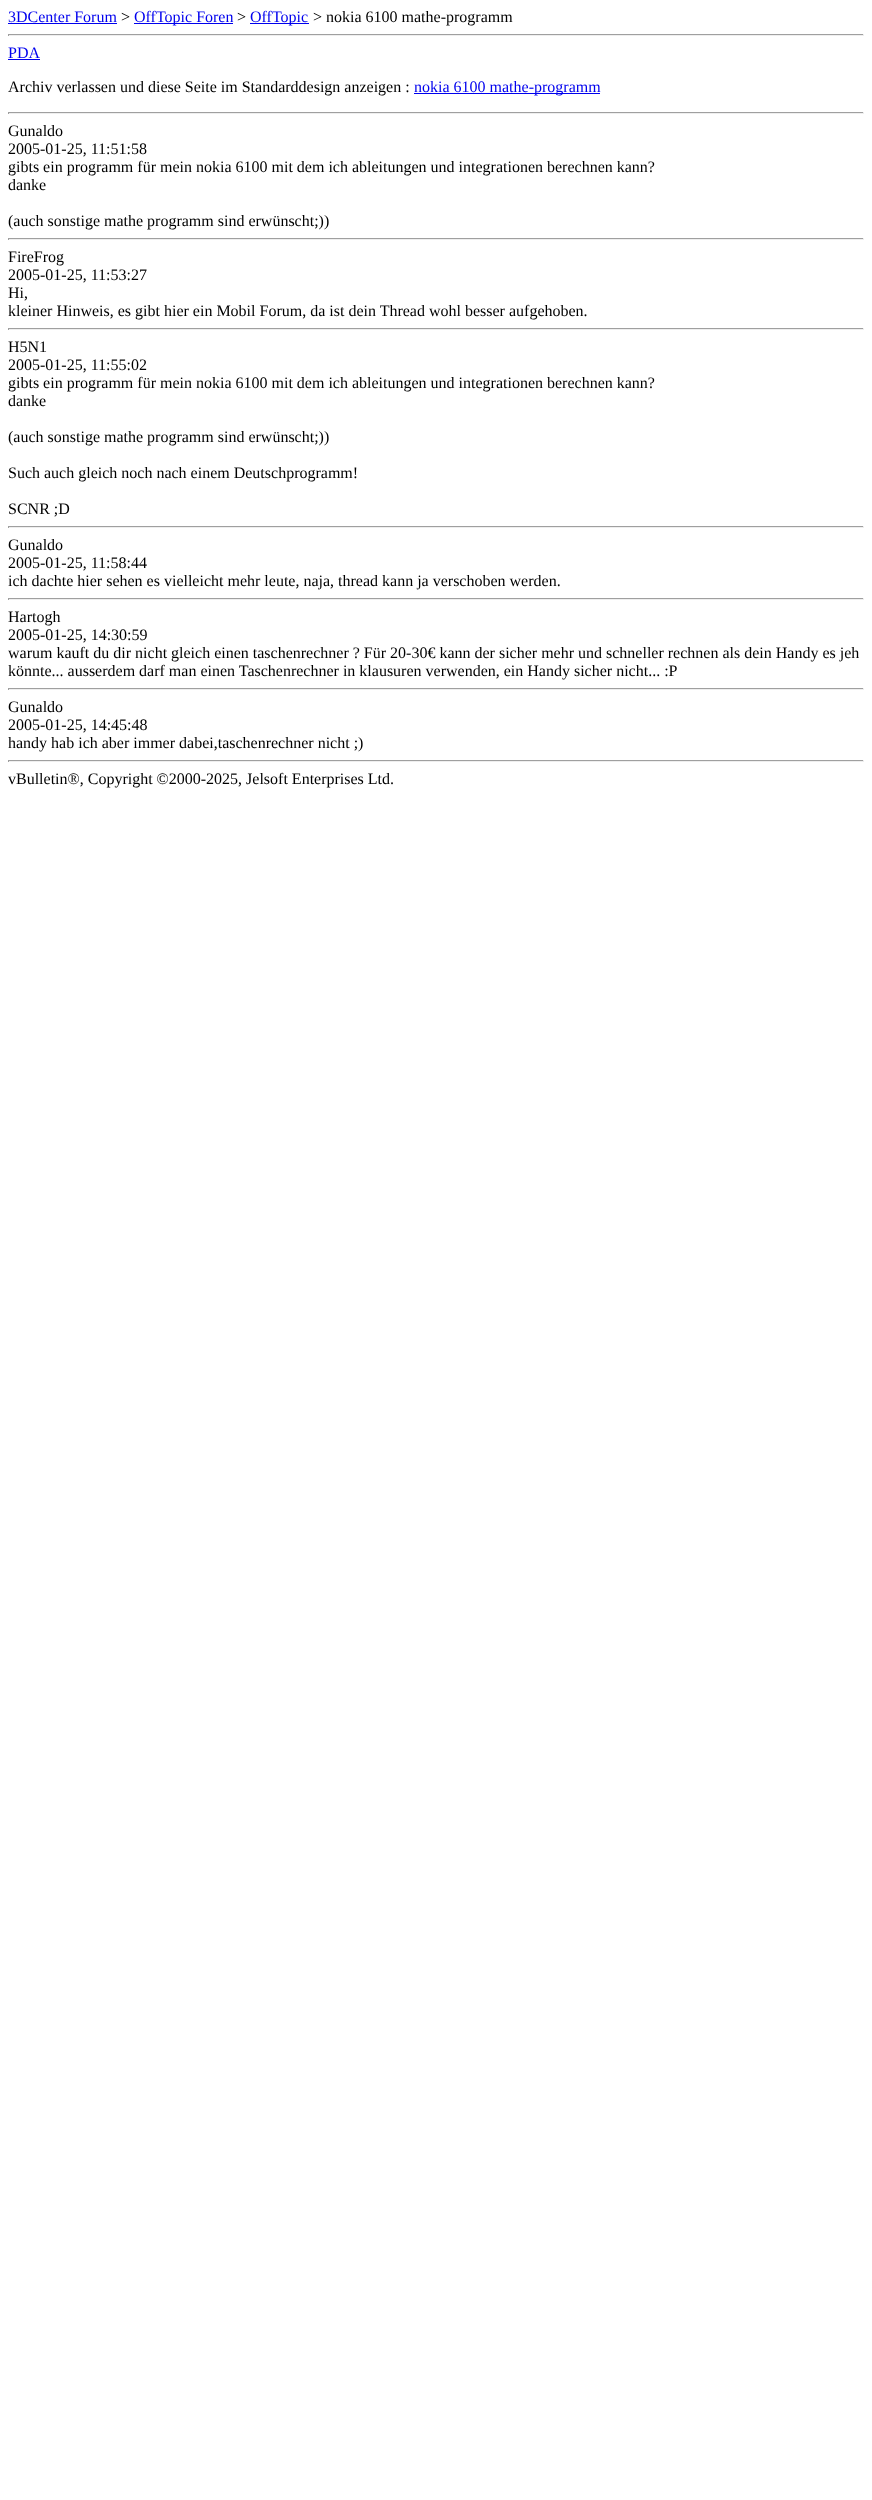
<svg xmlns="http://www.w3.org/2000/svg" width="872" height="2500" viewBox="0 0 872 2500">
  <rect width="100%" height="100%" fill="rgb(255,255,255)"/>
  <text x="8" y="22" font-family="Liberation Serif" font-size="16" fill="rgb(0,0,238)">3DCenter Forum</text>
  <rect x="8" y="23" width="109" height="1" fill="rgb(0,0,238)"/>
  <text x="121" y="22" font-family="Liberation Serif" font-size="16" fill="rgb(0,0,0)">&gt;</text>
  <rect x="134" y="23" width="99" height="1" fill="rgb(0,0,238)"/>
  <text x="134" y="22" font-family="Liberation Serif" font-size="16" fill="rgb(0,0,238)">OffTopic Foren</text>
  <text x="237" y="22" font-family="Liberation Serif" font-size="16" fill="rgb(0,0,0)">&gt;</text>
  <rect x="250" y="23" width="59" height="1" fill="rgb(0,0,238)"/>
  <text x="250" y="22" font-family="Liberation Serif" font-size="16" fill="rgb(0,0,238)">OffTopic</text>
  <text x="313" y="22" font-family="Liberation Serif" font-size="16" fill="rgb(0,0,0)">&gt; nokia 6100 mathe-programm</text>
  <rect x="8" y="34" width="856" height="1" fill="rgb(159,159,159)"/>
  <rect x="863" y="34" width="1" height="2" fill="rgb(238,238,238)"/>
  <rect x="8" y="35" width="856" height="1" fill="rgb(238,238,238)"/>
  <rect x="8" y="34" width="1" height="2" fill="rgb(159,159,159)"/>
  <text x="8" y="58" font-family="Liberation Serif" font-size="16" fill="rgb(0,0,238)">PDA</text>
  <rect x="8" y="59" width="32" height="1" fill="rgb(0,0,238)"/>
  <text x="8" y="92" font-family="Liberation Serif" font-size="16" fill="rgb(0,0,0)">Archiv verlassen und diese Seite im Standarddesign anzeigen :</text>
  <rect x="414" y="93" width="186" height="1" fill="rgb(0,0,238)"/>
  <text x="414" y="92" font-family="Liberation Serif" font-size="16" fill="rgb(0,0,238)">nokia 6100 mathe-programm</text>
  <rect x="8" y="112" width="856" height="1" fill="rgb(159,159,159)"/>
  <rect x="863" y="112" width="1" height="2" fill="rgb(238,238,238)"/>
  <rect x="8" y="113" width="856" height="1" fill="rgb(238,238,238)"/>
  <rect x="8" y="112" width="1" height="2" fill="rgb(159,159,159)"/>
  <g font-family="Liberation Serif" font-size="16" fill="rgb(0,0,0)">
    <text>
      <tspan x="8" y="136">Gunaldo</tspan>
      <tspan x="8" y="154">2005-01-25, 11:51:58</tspan>
      <tspan x="8" y="172">gibts ein programm für mein nokia 6100 mit dem ich ableitungen und integrationen berechnen kann?</tspan>
      <tspan x="8" y="190">danke</tspan>
    </text>
    <text x="8" y="226">(auch sonstige mathe programm sind erwünscht;))</text>
  </g>
  <rect x="8" y="238" width="856" height="1" fill="rgb(159,159,159)"/>
  <rect x="863" y="238" width="1" height="2" fill="rgb(238,238,238)"/>
  <rect x="8" y="239" width="856" height="1" fill="rgb(238,238,238)"/>
  <rect x="8" y="238" width="1" height="2" fill="rgb(159,159,159)"/>
  <g font-family="Liberation Serif" font-size="16" fill="rgb(0,0,0)">
    <text>
      <tspan x="8" y="262">FireFrog</tspan>
      <tspan x="8" y="280">2005-01-25, 11:53:27</tspan>
      <tspan x="8" y="298">Hi,</tspan>
      <tspan x="8" y="316">kleiner Hinweis, es gibt hier ein Mobil Forum, da ist dein Thread wohl besser aufgehoben.</tspan>
    </text>
  </g>
  <rect x="8" y="328" width="856" height="1" fill="rgb(159,159,159)"/>
  <rect x="863" y="328" width="1" height="2" fill="rgb(238,238,238)"/>
  <rect x="8" y="329" width="856" height="1" fill="rgb(238,238,238)"/>
  <rect x="8" y="328" width="1" height="2" fill="rgb(159,159,159)"/>
  <g font-family="Liberation Serif" font-size="16" fill="rgb(0,0,0)">
    <text>
      <tspan x="8" y="352">H5N1</tspan>
      <tspan x="8" y="370">2005-01-25, 11:55:02</tspan>
      <tspan x="8" y="388">gibts ein programm für mein nokia 6100 mit dem ich ableitungen und integrationen berechnen kann?</tspan>
      <tspan x="8" y="406">danke</tspan>
    </text>
    <text x="8" y="442">(auch sonstige mathe programm sind erwünscht;))</text>
    <text x="8" y="478">Such auch gleich noch nach einem Deutschprogramm!</text>
    <text x="8" y="514">SCNR ;D</text>
  </g>
  <rect x="8" y="526" width="856" height="1" fill="rgb(159,159,159)"/>
  <rect x="863" y="526" width="1" height="2" fill="rgb(238,238,238)"/>
  <rect x="8" y="527" width="856" height="1" fill="rgb(238,238,238)"/>
  <rect x="8" y="526" width="1" height="2" fill="rgb(159,159,159)"/>
  <g font-family="Liberation Serif" font-size="16" fill="rgb(0,0,0)">
    <text>
      <tspan x="8" y="550">Gunaldo</tspan>
      <tspan x="8" y="568">2005-01-25, 11:58:44</tspan>
      <tspan x="8" y="586">ich dachte hier sehen es vielleicht mehr leute, naja, thread kann ja verschoben werden.</tspan>
    </text>
  </g>
  <rect x="8" y="598" width="856" height="1" fill="rgb(159,159,159)"/>
  <rect x="863" y="598" width="1" height="2" fill="rgb(238,238,238)"/>
  <rect x="8" y="599" width="856" height="1" fill="rgb(238,238,238)"/>
  <rect x="8" y="598" width="1" height="2" fill="rgb(159,159,159)"/>
  <g font-family="Liberation Serif" font-size="16" fill="rgb(0,0,0)">
    <text>
      <tspan x="8" y="622">Hartogh</tspan>
      <tspan x="8" y="640">2005-01-25, 14:30:59</tspan>
      <tspan x="8" y="658">warum kauft du dir nicht gleich einen taschenrechner ? Für 20-30€ kann der sicher mehr und schneller rechnen als dein Handy es jeh</tspan>
      <tspan x="8" y="676">könnte... ausserdem darf man einen Taschenrechner in klausuren verwenden, ein Handy sicher nicht... :P</tspan>
    </text>
  </g>
  <rect x="8" y="688" width="856" height="1" fill="rgb(159,159,159)"/>
  <rect x="863" y="688" width="1" height="2" fill="rgb(238,238,238)"/>
  <rect x="8" y="689" width="856" height="1" fill="rgb(238,238,238)"/>
  <rect x="8" y="688" width="1" height="2" fill="rgb(159,159,159)"/>
  <g font-family="Liberation Serif" font-size="16" fill="rgb(0,0,0)">
    <text>
      <tspan x="8" y="712">Gunaldo</tspan>
      <tspan x="8" y="730">2005-01-25, 14:45:48</tspan>
      <tspan x="8" y="748">handy hab ich aber immer dabei,taschenrechner nicht ;)</tspan>
    </text>
  </g>
  <rect x="8" y="760" width="856" height="1" fill="rgb(159,159,159)"/>
  <rect x="863" y="760" width="1" height="2" fill="rgb(238,238,238)"/>
  <rect x="8" y="761" width="856" height="1" fill="rgb(238,238,238)"/>
  <rect x="8" y="760" width="1" height="2" fill="rgb(159,159,159)"/>
  <text x="8" y="784" font-family="Liberation Serif" font-size="16" fill="rgb(0,0,0)">vBulletin®, Copyright ©2000-2025, Jelsoft Enterprises Ltd.</text>
</svg>
